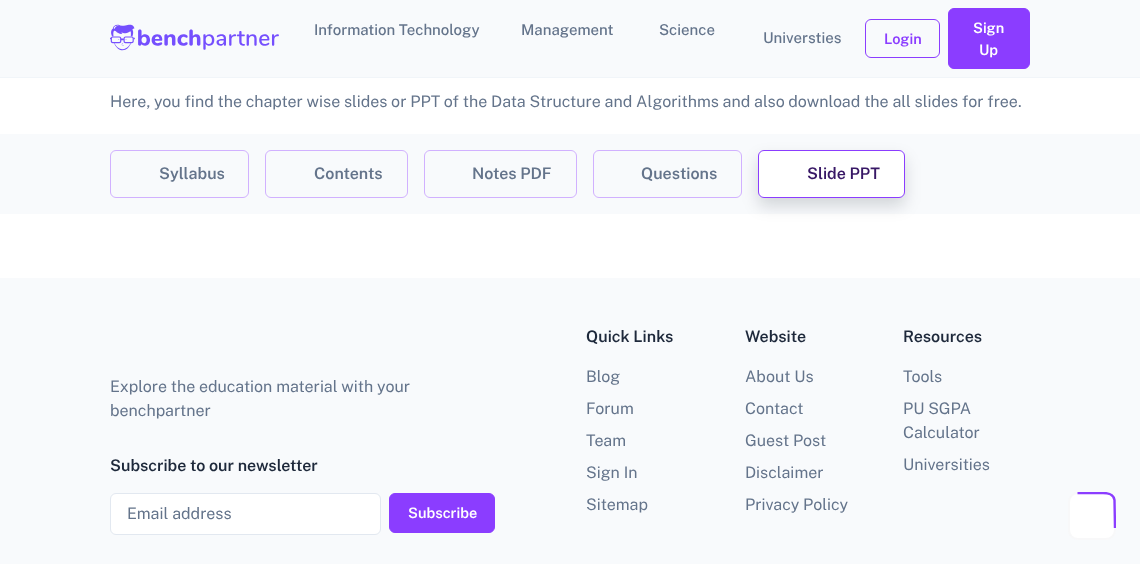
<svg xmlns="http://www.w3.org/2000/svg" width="1140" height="564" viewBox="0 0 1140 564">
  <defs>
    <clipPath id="clip1"><rect x="1068" y="492" width="48" height="48"/></clipPath>
  </defs>
  <rect width="100%" height="100%" fill="rgb(255,255,255)"/>
  <rect x="0" y="0" width="1140" height="77" fill="rgb(248,250,252)"/>
  <rect x="0" y="77" width="1140" height="1" fill="rgb(241,245,249)"/>
  <image x="110" y="24" width="169" height="27" href="pic1.png"/>
  <g font-family="Public Sans" font-size="15" font-weight="500" fill="rgb(100,116,139)">
    <text x="314" y="35">Information Technology</text>
    <text x="521" y="35">Management</text>
    <text x="659" y="35">Science</text>
    <text x="763" y="43">Universties</text>
  </g>
  <rect x="865.5" y="19.5" width="74" height="38" rx="5.5" fill="none" stroke="rgb(139,61,255)"/>
  <text x="884" y="44" font-family="Public Sans" font-size="14.5" font-weight="600" fill="rgb(139,61,255)">Login</text>
  <rect x="948.5" y="8.5" width="81" height="60" rx="5.5" fill="rgb(139,61,255)" stroke="rgb(139,61,255)"/>
  <g font-family="Public Sans" font-size="14.5" font-weight="600" fill="rgb(255,255,255)">
    <text x="973" y="33">Sign</text>
    <text x="979" y="55">Up</text>
  </g>
  <text x="110" y="107" font-family="Public Sans" font-size="16" fill="rgb(100,116,139)">Here, you find the chapter wise slides or PPT of the Data Structure and Algorithms and also download the all slides for free.</text>
  <rect x="0" y="134" width="1140" height="80" fill="rgb(248,250,252)"/>
  <rect x="110.5" y="150.5" width="138" height="47" rx="5.5" fill="none" stroke="rgb(209,177,255)"/>
  <text x="159" y="179" font-family="Public Sans" font-size="16" font-weight="600" fill="rgb(100,116,139)">Syllabus</text>
  <rect x="265.5" y="150.5" width="142" height="47" rx="5.5" fill="none" stroke="rgb(209,177,255)"/>
  <text x="314" y="179" font-family="Public Sans" font-size="16" font-weight="600" fill="rgb(100,116,139)">Contents</text>
  <rect x="424.5" y="150.5" width="152" height="47" rx="5.5" fill="none" stroke="rgb(209,177,255)"/>
  <text x="472" y="179" font-family="Public Sans" font-size="16" font-weight="600" fill="rgb(100,116,139)">Notes PDF</text>
  <rect x="593.5" y="150.5" width="148" height="47" rx="5.5" fill="none" stroke="rgb(209,177,255)"/>
  <text x="641" y="179" font-family="Public Sans" font-size="16" font-weight="600" fill="rgb(100,116,139)">Questions</text>
  <rect x="758" y="158" width="147" height="48" rx="6" fill="rgba(2,6,23,0.15)" filter="blur(8px)"/>
  <rect x="758.5" y="150.5" width="146" height="47" rx="5.5" fill="rgb(255,255,255)" stroke="rgb(139,61,255)"/>
  <text x="807" y="179" font-family="Public Sans" font-size="16" font-weight="600" fill="rgb(56,24,102)">Slide PPT</text>
  <rect x="0" y="278" width="1140" height="286" fill="rgb(248,250,252)"/>
  <g font-family="Public Sans" font-size="16" fill="rgb(100,116,139)">
    <text>
      <tspan x="110" y="392">Explore the education material with your</tspan>
      <tspan x="110" y="416">benchpartner</tspan>
    </text>
  </g>
  <text x="110" y="471" font-family="Public Sans" font-size="16" font-weight="600" fill="rgb(30,41,59)">Subscribe to our newsletter</text>
  <rect x="110.5" y="493.5" width="270" height="41" rx="5.5" fill="rgb(255,255,255)" stroke="rgb(226,232,240)"/>
  <text x="127" y="519" font-family="Public Sans" font-size="16" fill="rgb(100,116,139)">Email address</text>
  <rect x="389.5" y="493.5" width="105" height="39" rx="5.5" fill="rgb(139,61,255)" stroke="rgb(139,61,255)"/>
  <text x="408" y="518" font-family="Public Sans" font-size="14.5" font-weight="600" fill="rgb(255,255,255)">Subscribe</text>
  <text x="586" y="342" font-family="Public Sans" font-size="16" font-weight="600" fill="rgb(30,41,59)">Quick Links</text>
  <g font-family="Public Sans" font-size="16" fill="rgb(100,116,139)">
    <text x="586" y="382">Blog</text>
    <text x="586" y="414">Forum</text>
    <text x="586" y="446">Team</text>
    <text x="586" y="478">Sign In</text>
    <text x="586" y="510">Sitemap</text>
  </g>
  <text x="745" y="342" font-family="Public Sans" font-size="16" font-weight="600" fill="rgb(30,41,59)">Website</text>
  <g font-family="Public Sans" font-size="16" fill="rgb(100,116,139)">
    <text x="745" y="382">About Us</text>
    <text x="745" y="414">Contact</text>
    <text x="745" y="446">Guest Post</text>
    <text x="745" y="478">Disclaimer</text>
    <text x="745" y="510">Privacy Policy</text>
  </g>
  <text x="903" y="342" font-family="Public Sans" font-size="16" font-weight="600" fill="rgb(30,41,59)">Resources</text>
  <g font-family="Public Sans" font-size="16" fill="rgb(100,116,139)">
    <text x="903" y="382">Tools</text>
    <text>
      <tspan x="903" y="414">PU SGPA</tspan>
      <tspan x="903" y="438">Calculator</tspan>
    </text>
    <text x="903" y="470">Universities</text>
  </g>
  <rect x="1068" y="492" width="48" height="48" rx="10" fill="rgb(255,255,255)"/>
  <rect x="1069" y="493" width="46" height="46" rx="9" fill="none" stroke="rgba(227,229,233,0.25)" stroke-width="2"/>
  <g clip-path="url(#clip1)">
    <path d="M1077.5 493H1103C1108 493 1113.5 493.5 1114.5 500L1115 528" fill="none" stroke="rgb(139,61,255)" stroke-width="2.4"/>
  </g>
</svg>
